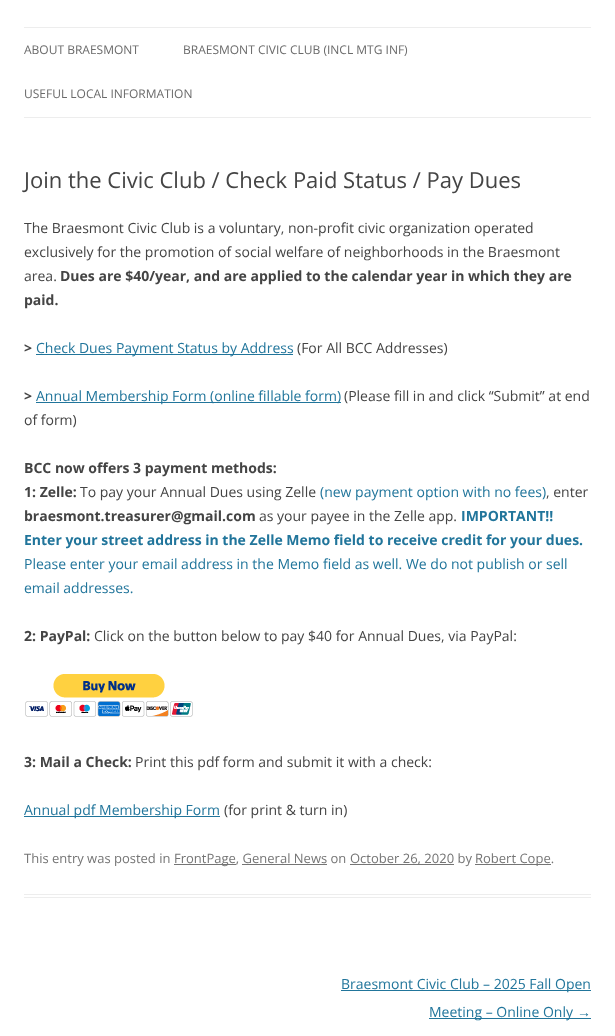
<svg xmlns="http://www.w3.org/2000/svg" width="615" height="1036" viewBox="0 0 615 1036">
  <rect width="100%" height="100%" fill="rgb(255,255,255)"/>
  <rect x="24" y="27" width="567" height="1" fill="rgb(237,237,237)"/>
  <rect x="24" y="117" width="567" height="1" fill="rgb(237,237,237)"/>
  <g font-family="Open Sans" font-size="12" fill="rgb(106,106,106)">
    <text x="24" y="54">ABOUT BRAESMONT</text>
    <text x="183" y="54">BRAESMONT CIVIC CLUB (INCL MTG INF)</text>
    <text x="24" y="98">USEFUL LOCAL INFORMATION</text>
  </g>
  <rect x="24" y="894" width="567" height="1" fill="rgb(237,237,237)"/>
  <rect x="24" y="897" width="567" height="1" fill="rgb(237,237,237)"/>
  <text x="24" y="188" font-family="Open Sans" font-size="22" fill="rgb(68,68,68)">Join the Civic Club / Check Paid Status / Pay Dues</text>
  <g font-family="Open Sans" font-size="14" fill="rgb(68,68,68)">
    <text>
      <tspan x="24" y="233">The Braesmont Civic Club is a voluntary, non-profit civic organization operated</tspan>
      <tspan x="24" y="257">exclusively for the promotion of social welfare of neighborhoods in the Braesmont</tspan>
      <tspan x="24" y="281">area.</tspan>
    </text>
  </g>
  <g font-family="Open Sans" font-size="14" font-weight="bold" fill="rgb(68,68,68)">
    <text x="60" y="281">Dues are $40/year, and are applied to the calendar year in which they are</text>
    <text x="24" y="305">paid.</text>
    <text x="24" y="353">&gt;</text>
  </g>
  <rect x="36" y="354" width="257" height="1" fill="rgb(33,117,155)"/>
  <text x="36" y="353" font-family="Open Sans" font-size="14" fill="rgb(33,117,155)">Check Dues Payment Status by Address</text>
  <text x="297" y="353" font-family="Open Sans" font-size="14" fill="rgb(68,68,68)">(For All BCC Addresses)</text>
  <text x="24" y="401" font-family="Open Sans" font-size="14" font-weight="bold" fill="rgb(68,68,68)">&gt;</text>
  <rect x="36" y="402" width="305" height="1" fill="rgb(33,117,155)"/>
  <text x="36" y="401" font-family="Open Sans" font-size="14" fill="rgb(33,117,155)">Annual Membership Form (online fillable form)</text>
  <g font-family="Open Sans" font-size="14" fill="rgb(68,68,68)">
    <text x="344" y="401">(Please fill in and click “Submit” at end</text>
    <text x="24" y="425">of form)</text>
  </g>
  <g font-family="Open Sans" font-size="14" font-weight="bold" fill="rgb(68,68,68)">
    <text>
      <tspan x="24" y="473">BCC now offers 3 payment methods:</tspan>
      <tspan x="24" y="497">1: Zelle:</tspan>
    </text>
  </g>
  <text x="80" y="497" font-family="Open Sans" font-size="14" fill="rgb(68,68,68)">To pay your Annual Dues using Zelle</text>
  <text x="320" y="497" font-family="Open Sans" font-size="14" fill="rgb(33,117,155)">(new payment option with no fees)</text>
  <text x="546" y="497" font-family="Open Sans" font-size="14" fill="rgb(68,68,68)">, enter</text>
  <text x="24" y="521" font-family="Open Sans" font-size="14" font-weight="bold" fill="rgb(68,68,68)">braesmont.treasurer@gmail.com</text>
  <text x="259" y="521" font-family="Open Sans" font-size="14" fill="rgb(68,68,68)">as your payee in the Zelle app.</text>
  <g font-family="Open Sans" font-size="14" font-weight="bold" fill="rgb(33,117,155)">
    <text x="461" y="521">IMPORTANT!!</text>
    <text x="24" y="545">Enter your street address in the Zelle Memo field to receive credit for your dues.</text>
  </g>
  <g font-family="Open Sans" font-size="14" fill="rgb(33,117,155)">
    <text>
      <tspan x="24" y="569">Please enter your email address in the Memo field as well. We do not publish or sell</tspan>
      <tspan x="24" y="593">email addresses.</tspan>
    </text>
  </g>
  <text x="24" y="641" font-family="Open Sans" font-size="14" font-weight="bold" fill="rgb(68,68,68)">2: PayPal:</text>
  <text x="94" y="641" font-family="Open Sans" font-size="14" fill="rgb(68,68,68)">Click on the button below to pay $40 for Annual Dues, via PayPal:</text>
  <image x="25" y="674" width="168" height="43" href="pic1.png"/>
  <text x="24" y="767" font-family="Open Sans" font-size="14" font-weight="bold" fill="rgb(68,68,68)">3: Mail a Check:</text>
  <text x="135" y="767" font-family="Open Sans" font-size="14" fill="rgb(68,68,68)">Print this pdf form and submit it with a check:</text>
  <rect x="24" y="816" width="196" height="1" fill="rgb(33,117,155)"/>
  <text x="24" y="815" font-family="Open Sans" font-size="14" fill="rgb(33,117,155)">Annual pdf Membership Form</text>
  <text x="224" y="815" font-family="Open Sans" font-size="14" fill="rgb(68,68,68)">(for print &amp; turn in)</text>
  <text x="24" y="863" font-family="Open Sans" font-size="13" fill="rgb(117,117,117)">This entry was posted in</text>
  <rect x="174" y="864" width="62" height="1" fill="rgb(117,117,117)"/>
  <text x="174" y="863" font-family="Open Sans" font-size="13" fill="rgb(117,117,117)">FrontPage, General News on</text>
  <rect x="350" y="864" width="104" height="1" fill="rgb(117,117,117)"/>
  <text x="350" y="863" font-family="Open Sans" font-size="13" fill="rgb(117,117,117)">October 26, 2020 by</text>
  <rect x="475" y="864" width="76" height="1" fill="rgb(117,117,117)"/>
  <text x="475" y="863" font-family="Open Sans" font-size="13" fill="rgb(117,117,117)">Robert Cope.</text>
  <rect x="242" y="864" width="85" height="1" fill="rgb(117,117,117)"/>
  <rect x="341" y="990" width="250" height="1" fill="rgb(33,117,155)"/>
  <text x="341" y="989" font-family="Open Sans" font-size="14" fill="rgb(33,117,155)">Braesmont Civic Club – 2025 Fall Open</text>
  <rect x="429" y="1018" width="162" height="1" fill="rgb(33,117,155)"/>
  <text x="429" y="1017" font-family="Open Sans" font-size="14" fill="rgb(33,117,155)">Meeting – Online Only</text>
  <text x="577" y="1017" font-family="Liberation Sans" font-size="14" fill="rgb(33,117,155)">→</text>
</svg>
